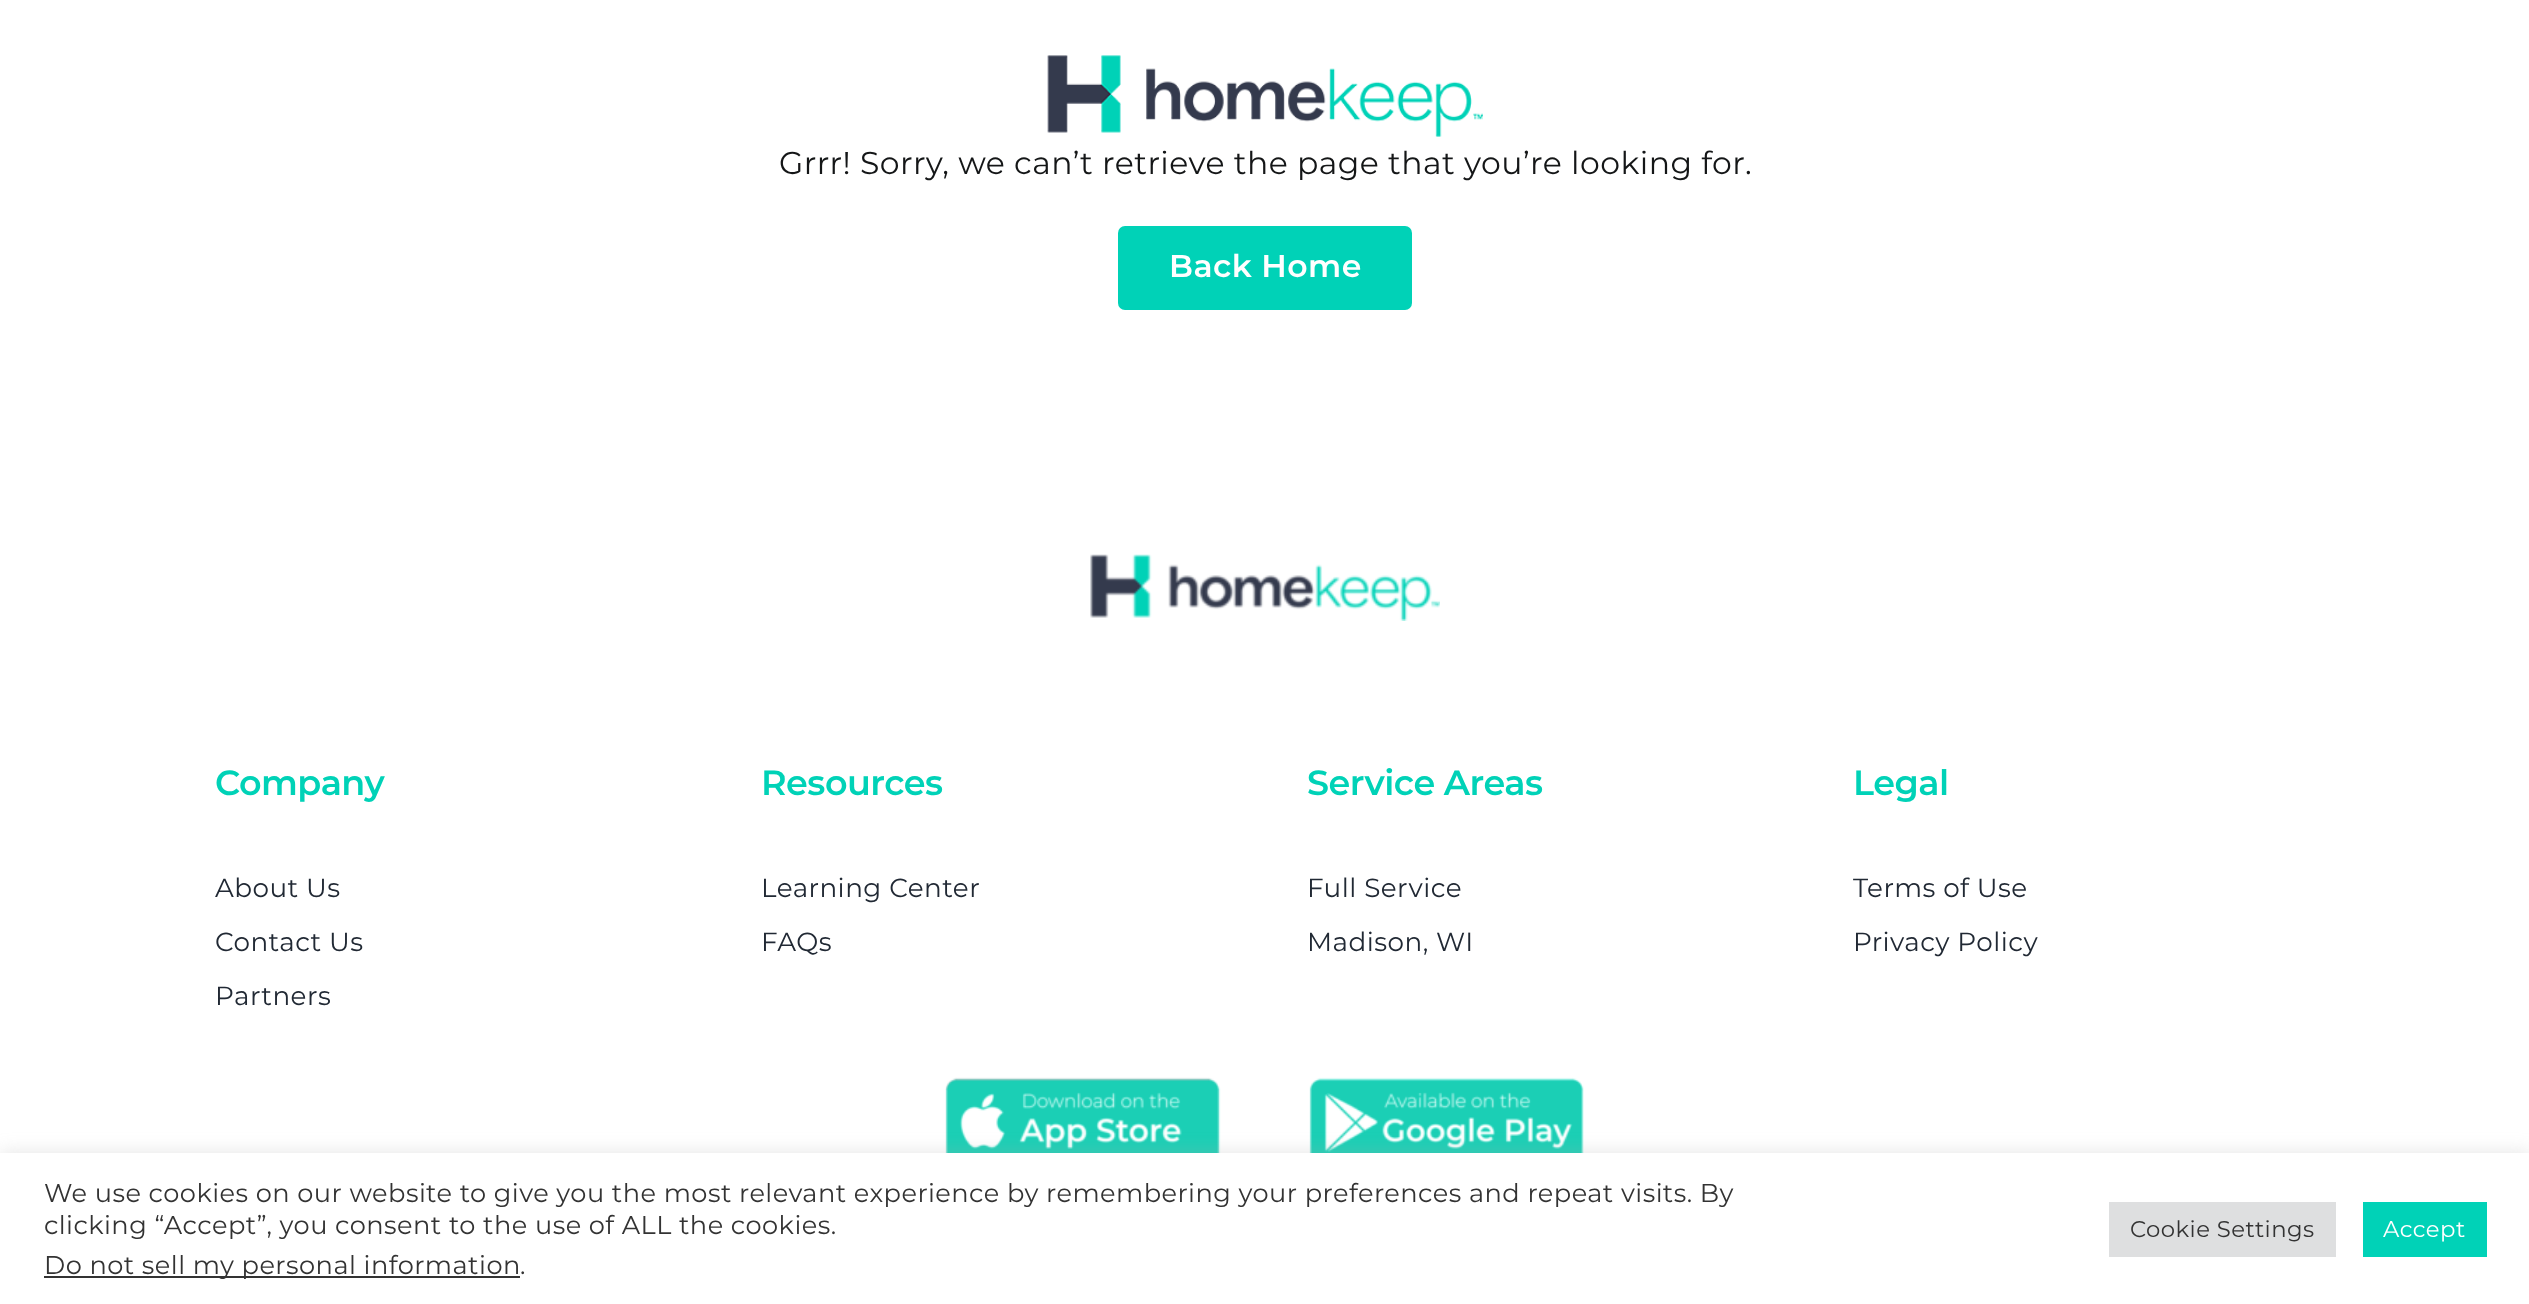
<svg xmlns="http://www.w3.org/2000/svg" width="2529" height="1304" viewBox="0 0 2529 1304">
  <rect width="100%" height="100%" fill="rgb(255,255,255)"/>
  <image x="1047" y="55" width="436" height="82" href="pic1.png"/>
  <text x="779" y="174" font-family="Montserrat" font-size="31.5" letter-spacing="0.47" fill="rgb(20,22,23)">Grrr! Sorry, we can’t retrieve the page that you’re looking for.</text>
  <rect x="1118" y="226" width="294" height="84" rx="7" fill="rgb(0,210,183)"/>
  <text x="1169" y="277" font-family="Montserrat" font-size="31.5" font-weight="600" letter-spacing="0.47" fill="rgb(255,255,255)">Back Home</text>
  <image x="1090" y="554" width="350" height="67" href="pic2.png"/>
  <text x="215" y="795" font-family="Montserrat" font-size="35" font-weight="600" letter-spacing="-0.5" fill="rgb(0,210,183)">Company</text>
  <g font-family="Montserrat" font-size="26.25" letter-spacing="0.47" fill="rgb(33,41,52)">
    <text x="215" y="897">About Us</text>
    <text x="215" y="951">Contact Us</text>
    <text x="215" y="1005">Partners</text>
  </g>
  <text x="761" y="795" font-family="Montserrat" font-size="35" font-weight="600" letter-spacing="-0.5" fill="rgb(0,210,183)">Resources</text>
  <g font-family="Montserrat" font-size="26.25" letter-spacing="0.47" fill="rgb(33,41,52)">
    <text x="761" y="897">Learning Center</text>
    <text x="761" y="951">FAQs</text>
  </g>
  <text x="1307" y="795" font-family="Montserrat" font-size="35" font-weight="600" letter-spacing="-0.5" fill="rgb(0,210,183)">Service Areas</text>
  <g font-family="Montserrat" font-size="26.25" letter-spacing="0.47" fill="rgb(33,41,52)">
    <text x="1307" y="897">Full Service</text>
    <text x="1307" y="951">Madison, WI</text>
  </g>
  <text x="1853" y="795" font-family="Montserrat" font-size="35" font-weight="600" letter-spacing="-0.5" fill="rgb(0,210,183)">Legal</text>
  <g font-family="Montserrat" font-size="26.25" letter-spacing="0.47" fill="rgb(33,41,52)">
    <text x="1853" y="897">Terms of Use</text>
    <text x="1853" y="951">Privacy Policy</text>
  </g>
  <image x="945" y="1077" width="276" height="76" href="pic3.png"/>
  <image x="1309" y="1077" width="275" height="76" href="pic4.png"/>
  <rect x="0" y="1152" width="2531" height="152" fill="rgba(172,171,171,0.3)" filter="blur(9px)"/>
  <rect x="0" y="1153" width="2529" height="151" fill="rgb(255,255,255)"/>
  <g font-family="Montserrat" font-size="25.67" letter-spacing="0.47" fill="rgb(51,51,51)">
    <text>
      <tspan x="44" y="1202">We use cookies on our website to give you the most relevant experience by remembering your preferences and repeat visits. By</tspan>
      <tspan x="44" y="1234">clicking “Accept”, you consent to the use of ALL the cookies.</tspan>
    </text>
  </g>
  <rect x="44" y="1276" width="476" height="2" fill="rgb(51,51,51)"/>
  <g font-family="Montserrat" font-size="25.67" letter-spacing="0.47" fill="rgb(51,51,51)">
    <text x="44" y="1274">Do not sell my personal information</text>
    <text x="520" y="1274">.</text>
  </g>
  <rect x="2109" y="1202" width="227" height="55" fill="rgb(222,223,224)"/>
  <text x="2130" y="1237" font-family="Montserrat" font-size="22.75" letter-spacing="0.47" fill="rgb(51,51,51)">Cookie Settings</text>
  <rect x="2363" y="1202" width="124" height="55" fill="rgb(0,210,183)"/>
  <text x="2383" y="1237" font-family="Montserrat" font-size="22.75" letter-spacing="0.47" fill="rgb(255,255,255)">Accept</text>
</svg>
